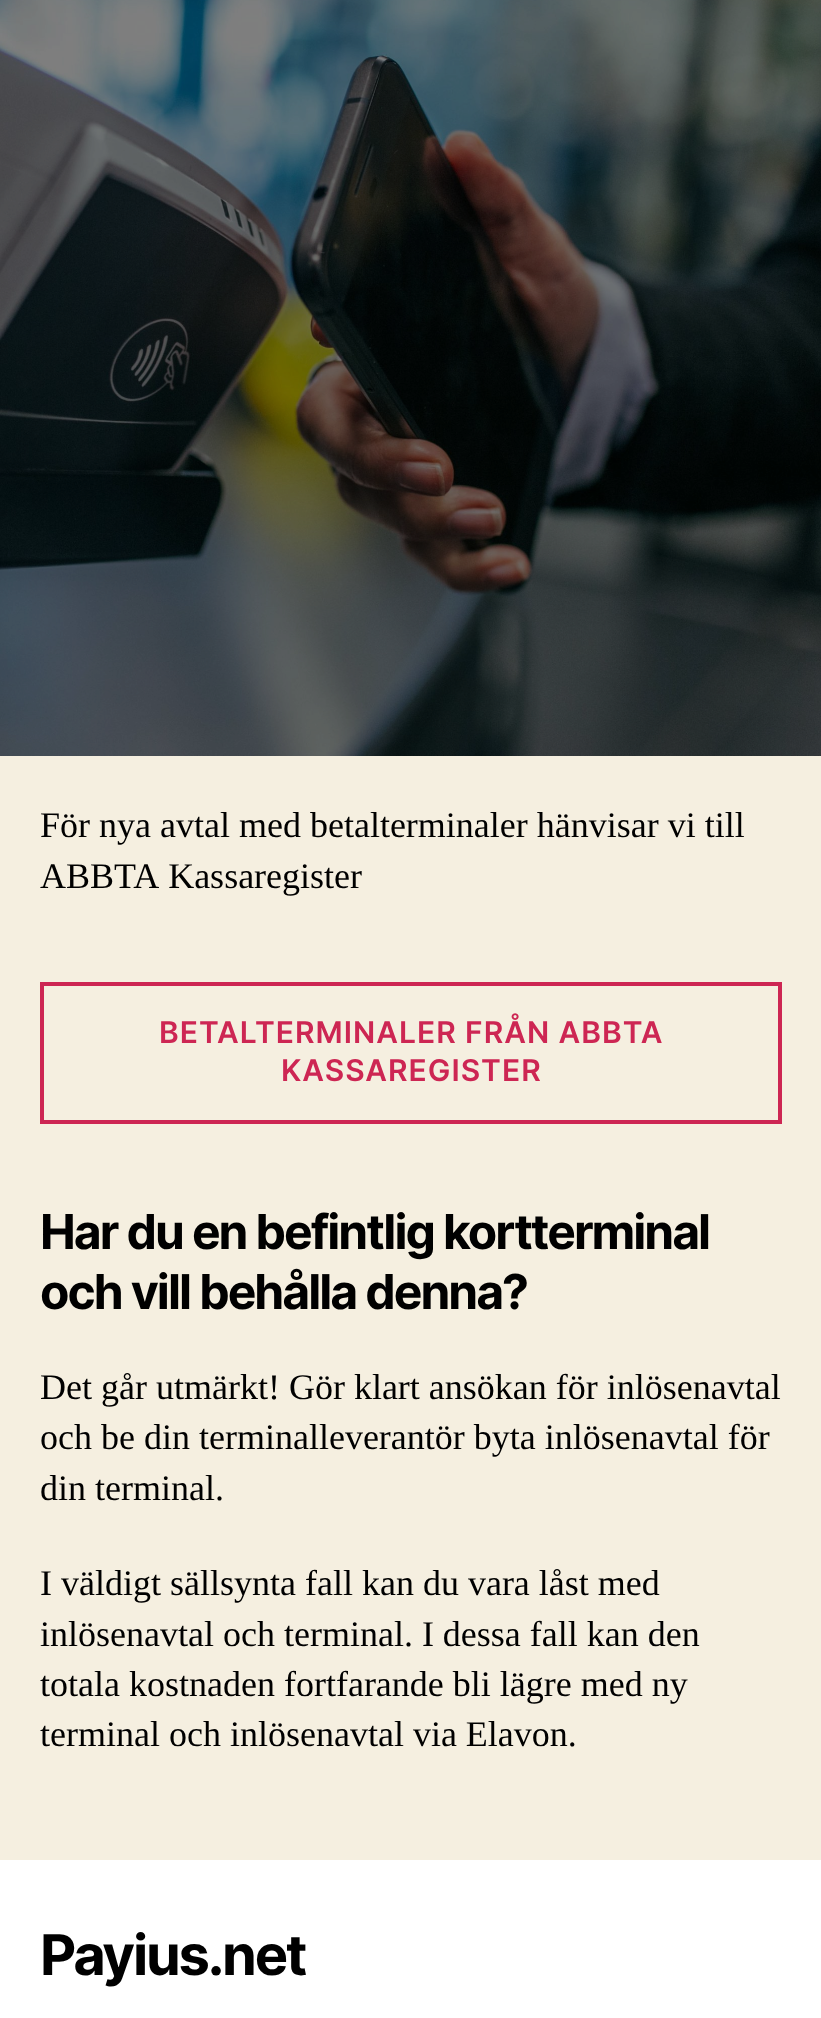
<svg xmlns="http://www.w3.org/2000/svg" width="821" height="2018" viewBox="0 0 821 2018">
  <rect width="100%" height="100%" fill="rgb(245,239,224)"/>
  <image x="0" y="0" width="821" height="756" href="pic1.png"/>
  <g font-family="Liberation Serif" font-size="36" fill="rgb(0,0,0)">
    <text>
      <tspan x="40" y="837">För nya avtal med betalterminaler hänvisar vi till</tspan>
      <tspan x="40" y="888" word-spacing="2">ABBTA Kassaregister</tspan>
    </text>
  </g>
  <rect x="42" y="984" width="738" height="138" fill="none" stroke="rgb(205,38,83)" stroke-width="4"/>
  <g font-family="Inter" font-size="30" font-weight="600" letter-spacing="1" fill="rgb(205,38,83)">
    <text x="159" y="1043">BETALTERMINALER FRÅN ABBTA</text>
    <text x="281" y="1081">KASSAREGISTER</text>
  </g>
  <g font-family="Inter" font-size="48" font-weight="bold" letter-spacing="-2" fill="rgb(0,0,0)">
    <text>
      <tspan x="40" y="1249">Har du en befintlig kortterminal</tspan>
      <tspan x="40" y="1309">och vill behålla denna?</tspan>
    </text>
  </g>
  <g font-family="Liberation Serif" font-size="36" fill="rgb(0,0,0)">
    <text>
      <tspan x="40" y="1399">Det går utmärkt! Gör klart ansökan för inlösenavtal</tspan>
      <tspan x="40" y="1449">och be din terminalleverantör byta inlösenavtal för</tspan>
      <tspan x="40" y="1500">din terminal.</tspan>
    </text>
    <text>
      <tspan x="40" y="1595">I väldigt sällsynta fall kan du vara låst med</tspan>
      <tspan x="40" y="1646">inlösenavtal och terminal. I dessa fall kan den</tspan>
      <tspan x="40" y="1696">totala kostnaden fortfarande bli lägre med ny</tspan>
      <tspan x="40" y="1746">terminal och inlösenavtal via Elavon.</tspan>
    </text>
  </g>
  <rect x="0" y="1860" width="821" height="158" fill="rgb(255,255,255)"/>
  <text x="40" y="1975" font-family="Inter" font-size="56" font-weight="bold" letter-spacing="-2.25" fill="rgb(0,0,0)">Payius.net</text>
</svg>
